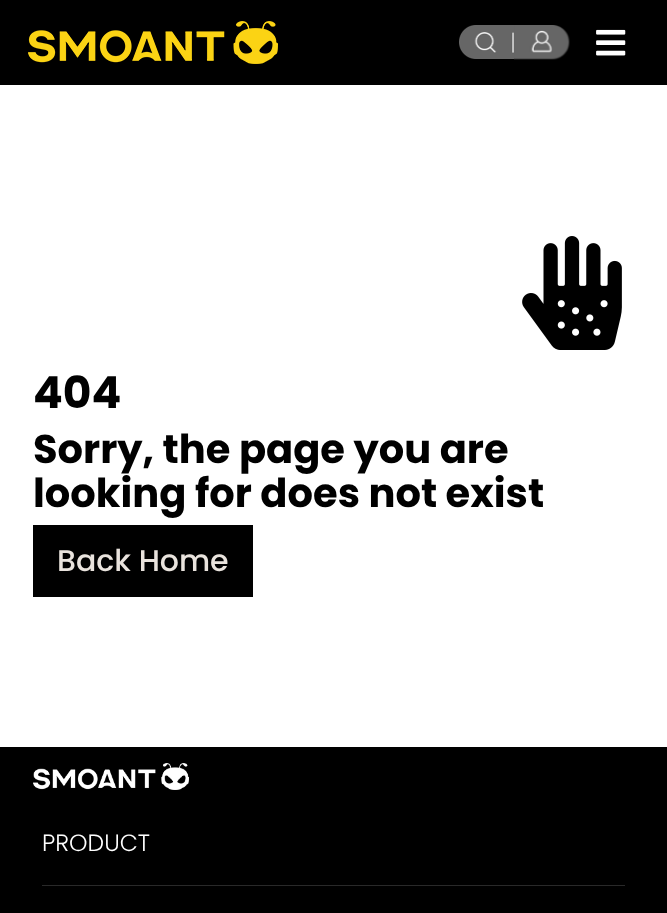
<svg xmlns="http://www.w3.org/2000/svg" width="667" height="913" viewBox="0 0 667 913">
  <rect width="100%" height="100%" fill="rgb(255,255,255)"/>
  <rect x="0" y="0" width="667" height="85" fill="rgb(0,0,0)"/>
  <image x="28" y="21" width="250" height="43" href="pic1.png"/>
  <image x="459" y="25" width="55" height="34" href="pic2.png"/>
  <image x="514" y="25" width="56" height="35" href="pic3.png"/>
  <image x="596" y="29" width="30" height="27" href="pic4.png"/>
  <image x="522" y="236" width="100" height="114" href="pic5.png"/>
  <text x="33" y="408" font-family="Poppins" font-size="44" font-weight="bold" fill="rgb(0,0,0)">404</text>
  <g font-family="Poppins" font-size="40" font-weight="bold" fill="rgb(0,0,0)">
    <text>
      <tspan x="33" y="463">Sorry, the page you are</tspan>
      <tspan x="33" y="507">looking for does not exist</tspan>
    </text>
  </g>
  <rect x="33" y="525" width="220" height="72" fill="rgb(0,0,0)"/>
  <text x="57" y="571" font-family="Poppins" font-size="30" font-weight="500" fill="rgb(233,227,221)">Back Home</text>
  <rect x="0" y="747" width="667" height="166" fill="rgb(0,0,0)"/>
  <image x="33" y="763" width="156" height="27" href="pic6.png"/>
  <text x="42" y="851" font-family="Poppins" font-size="23.5" font-weight="300" fill="rgb(255,255,255)">PRODUCT</text>
  <rect x="42" y="885" width="583" height="1" fill="rgb(41,41,41)"/>
</svg>
